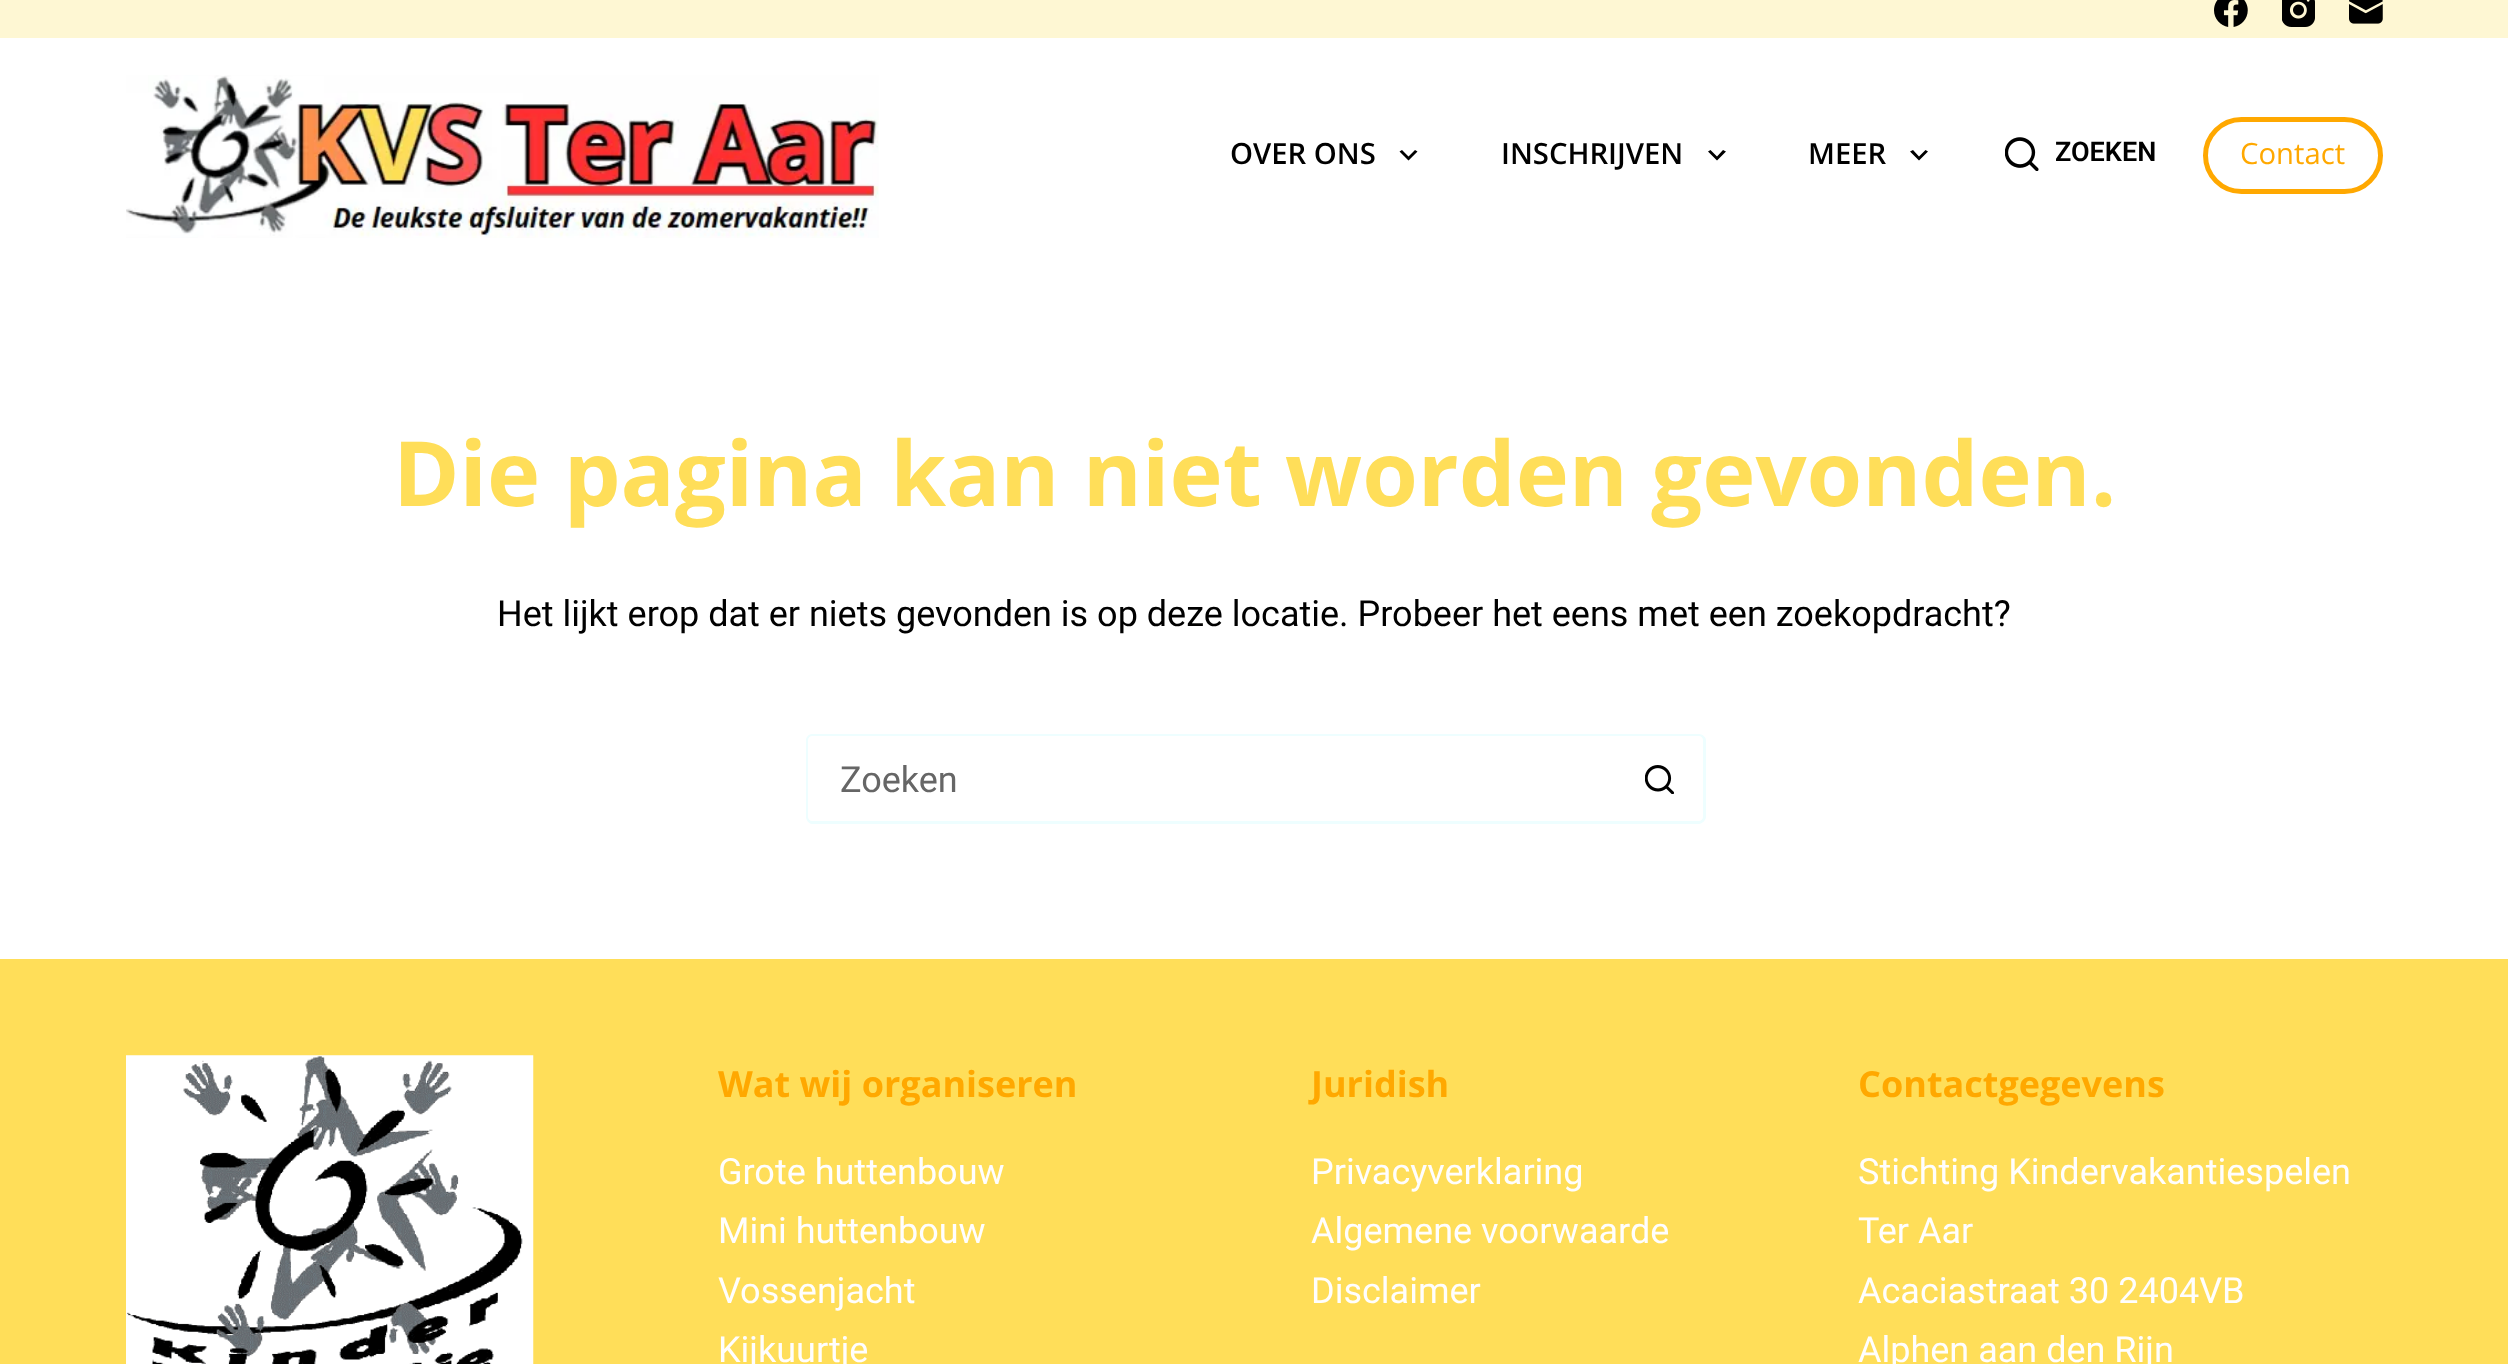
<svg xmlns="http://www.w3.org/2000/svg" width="2508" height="1364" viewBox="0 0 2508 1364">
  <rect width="100%" height="100%" fill="rgb(255,255,255)"/>
  <rect x="0" y="0" width="2508" height="38" fill="rgb(254,247,211)"/>
  <image x="2214" y="0" width="34" height="27" href="pic1.png"/>
  <image x="2282" y="0" width="33" height="27" href="pic2.png"/>
  <image x="2349" y="0" width="34" height="24" href="pic3.png"/>
  <image x="126" y="75" width="753" height="163" href="pic4.png"/>
  <text x="1230" y="164" font-family="Open Sans" font-size="29.25" font-weight="600" fill="rgb(0,0,0)">OVER ONS</text>
  <path d="M1402 150L1408.5 156.5L1415 150L1417.5 151.5L1408.5 160.5L1399.5 151.5Z" fill="rgb(0,0,0)"/>
  <text x="1501" y="164" font-family="Open Sans" font-size="29.25" font-weight="600" fill="rgb(0,0,0)">INSCHRIJVEN</text>
  <path d="M1710.5 150L1717 156.5L1723 150L1726 151.5L1717 160.5L1708 151.5Z" fill="rgb(0,0,0)"/>
  <text x="1808" y="164" font-family="Open Sans" font-size="29.25" font-weight="600" fill="rgb(0,0,0)">MEER</text>
  <path d="M1913 150L1919 156.5L1925.5 150L1928 151.5L1919 160.5L1910 151.5Z" fill="rgb(0,0,0)"/>
  <image x="2005" y="137" width="34" height="34" href="pic5.png"/>
  <text x="2055" y="161" font-family="Roboto" font-size="27" font-weight="600" fill="rgb(0,0,0)">ZOEKEN</text>
  <rect x="2205.5" y="119.5" width="175" height="72" rx="36" fill="none" stroke="rgb(255,168,0)" stroke-width="5"/>
  <text x="2240" y="164" font-family="Open Sans" font-size="29.25" fill="rgb(255,168,0)">Contact</text>
  <text x="393" y="506" font-family="Open Sans" font-size="90" font-weight="bold" fill="rgb(255,222,89)">Die pagina kan niet worden gevonden.</text>
  <text x="497" y="626" font-family="Roboto" font-size="36" fill="rgb(0,0,0)">Het lijkt erop dat er niets gevonden is op deze locatie. Probeer het eens met een zoekopdracht?</text>
  <path d="M812 734H1616V824H812C809 824 806 820 806 817V740C806 737 809 734 812 734ZM812 736H1616V821H812C810 821 808 819 808 817V740C808 738 810 736 812 736Z" fill="rgb(238,254,255)" fill-rule="evenodd"/>
  <text x="840" y="792" font-family="Roboto" font-size="36" fill="rgb(102,102,102)">Zoeken</text>
  <path d="M1616 734H1699C1702 734 1706 737 1706 740V817C1706 820 1702 824 1699 824H1616ZM1616 736H1699C1701 736 1703 738 1703 740V817C1703 819 1701 821 1699 821H1616Z" fill="rgb(238,254,255)" fill-rule="evenodd"/>
  <image x="1645" y="765" width="29" height="29" href="pic6.png"/>
  <rect x="0" y="959" width="2508" height="405" fill="rgb(255,222,89)"/>
  <image x="126" y="1055" width="408" height="309" href="pic7.png"/>
  <text x="718" y="1097" font-family="Open Sans" font-size="36" font-weight="bold" fill="rgb(255,168,0)">Wat wij organiseren</text>
  <g font-family="Roboto" font-size="36" fill="rgb(255,254,254)">
    <text>
      <tspan x="718" y="1184">Grote huttenbouw</tspan>
      <tspan x="718" y="1243">Mini huttenbouw</tspan>
      <tspan x="718" y="1303">Vossenjacht</tspan>
      <tspan x="718" y="1362">Kijkuurtje</tspan>
    </text>
  </g>
  <text x="1311" y="1097" font-family="Open Sans" font-size="36" font-weight="bold" fill="rgb(255,168,0)">Juridish</text>
  <g font-family="Roboto" font-size="36" fill="rgb(255,254,254)">
    <text>
      <tspan x="1311" y="1184">Privacyverklaring</tspan>
      <tspan x="1311" y="1243">Algemene voorwaarde</tspan>
      <tspan x="1311" y="1303">Disclaimer</tspan>
    </text>
  </g>
  <text x="1858" y="1097" font-family="Open Sans" font-size="36" font-weight="bold" fill="rgb(255,168,0)">Contactgegevens</text>
  <g font-family="Roboto" font-size="36" fill="rgb(255,254,254)">
    <text>
      <tspan x="1858" y="1184">Stichting Kindervakantiespelen</tspan>
      <tspan x="1858" y="1243">Ter Aar</tspan>
      <tspan x="1858" y="1303">Acaciastraat 30 2404VB</tspan>
      <tspan x="1858" y="1362">Alphen aan den Rijn</tspan>
    </text>
  </g>
</svg>
